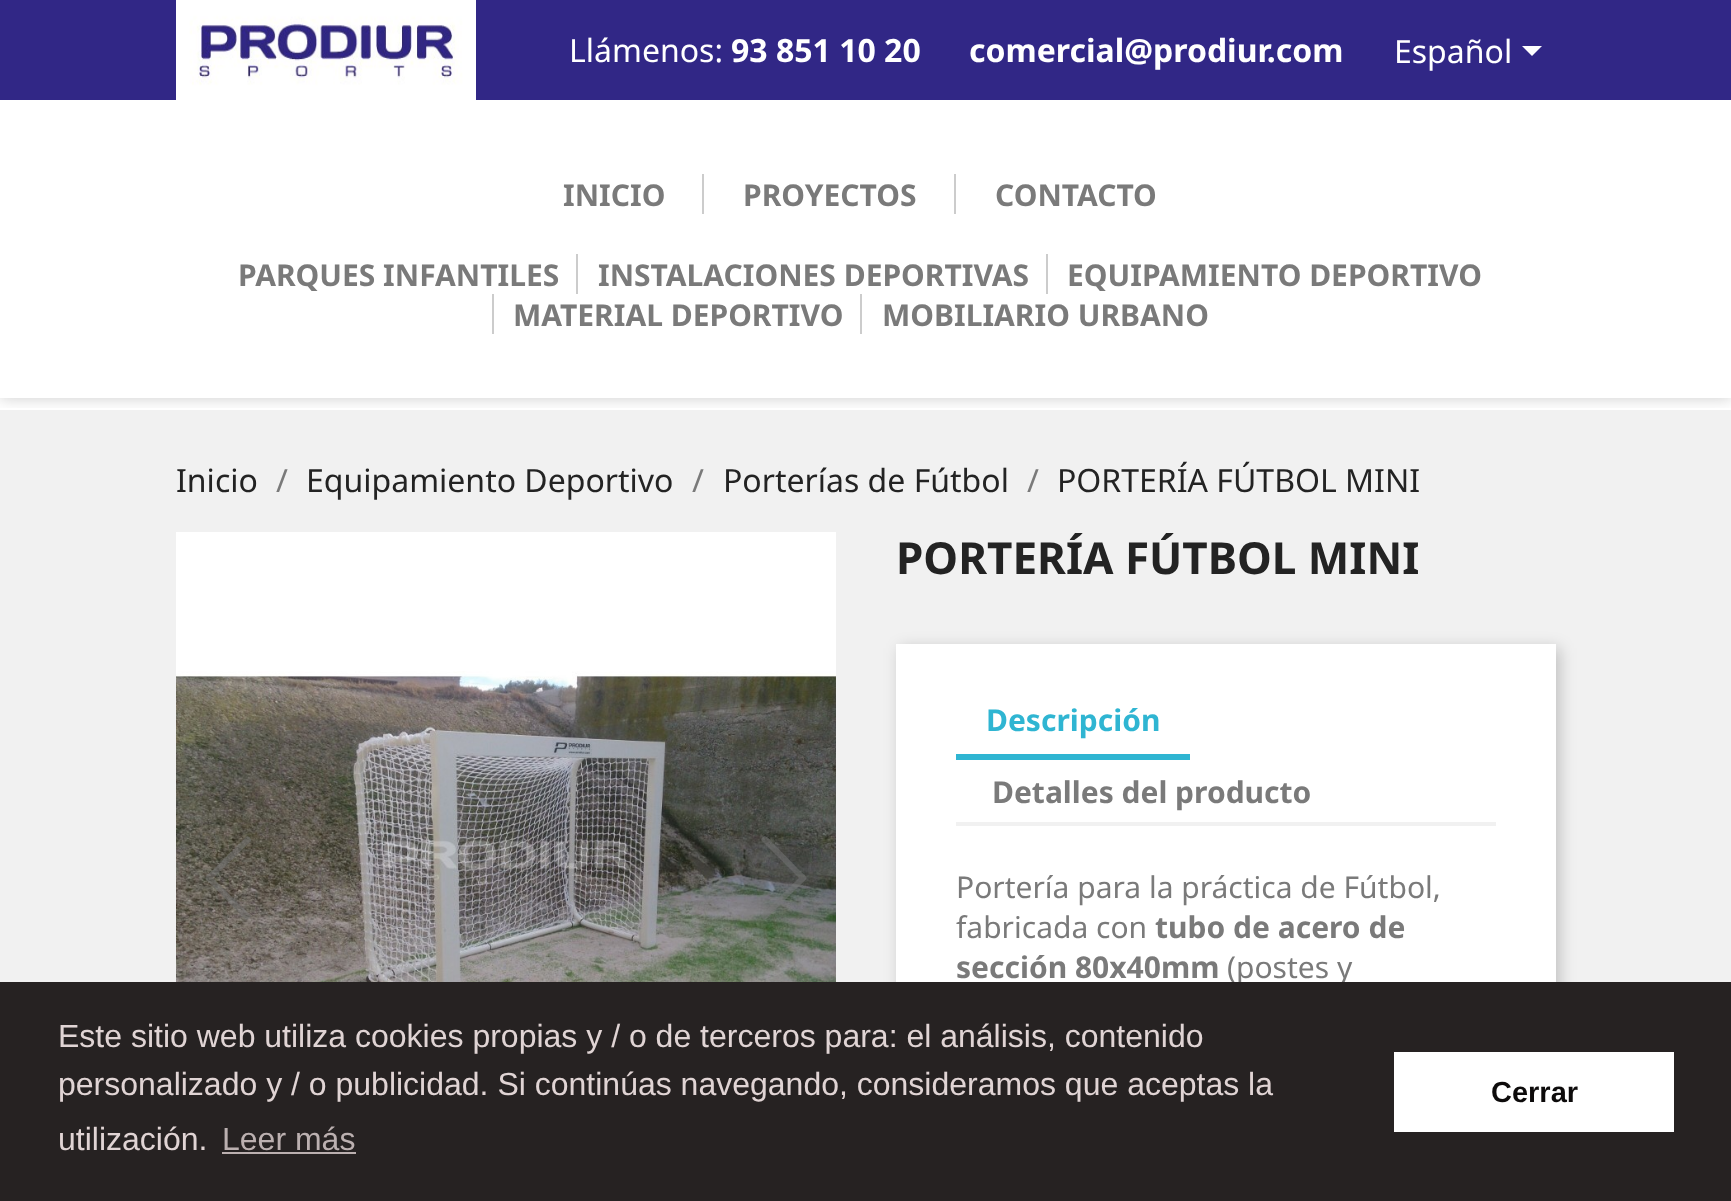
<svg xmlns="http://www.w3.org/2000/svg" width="1731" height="1201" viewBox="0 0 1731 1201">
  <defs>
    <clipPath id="clip1"><rect x="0" y="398" width="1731" height="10"/></clipPath>
  </defs>
  <rect width="100%" height="100%" fill="rgb(255,255,255)"/>
  <rect x="0" y="410" width="1731" height="572" fill="rgb(241,241,241)"/>
  <g clip-path="url(#clip1)">
    <rect x="0" y="0" width="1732" height="398" fill="rgba(0,0,0,0.2)" filter="blur(8px)"/>
  </g>
  <rect x="0" y="0" width="1731" height="100" fill="rgb(49,39,134)"/>
  <image x="176" y="0" width="300" height="100" href="pic1.png"/>
  <text x="569" y="62" font-family="Noto Sans" font-size="32" fill="rgb(255,255,255)">Llámenos:</text>
  <g font-family="Noto Sans" font-size="32" font-weight="bold" fill="rgb(255,255,255)">
    <text x="731" y="62">93 851 10 20</text>
    <text x="969" y="62">comercial@prodiur.com</text>
  </g>
  <text x="1394" y="63" font-family="Noto Sans" font-size="32" fill="rgb(255,255,255)">Español</text>
  <path d="M1522 46H1542L1532 56Z" fill="rgb(255,255,255)"/>
  <text x="563" y="206" font-family="Noto Sans" font-size="30" font-weight="bold" fill="rgb(122,122,122)">INICIO</text>
  <rect x="702" y="174" width="2" height="40" fill="rgb(204,204,204)"/>
  <text x="743" y="206" font-family="Noto Sans" font-size="30" font-weight="bold" fill="rgb(122,122,122)">PROYECTOS</text>
  <rect x="954" y="174" width="2" height="40" fill="rgb(204,204,204)"/>
  <g font-family="Noto Sans" font-size="30" font-weight="bold" fill="rgb(122,122,122)">
    <text x="995" y="206">CONTACTO</text>
    <text x="238" y="286">PARQUES INFANTILES</text>
  </g>
  <rect x="576" y="254" width="2" height="40" fill="rgb(204,204,204)"/>
  <text x="598" y="286" font-family="Noto Sans" font-size="30" font-weight="bold" fill="rgb(122,122,122)">INSTALACIONES DEPORTIVAS</text>
  <rect x="1046" y="254" width="2" height="40" fill="rgb(204,204,204)"/>
  <text x="1067" y="286" font-family="Noto Sans" font-size="30" font-weight="bold" fill="rgb(122,122,122)">EQUIPAMIENTO DEPORTIVO</text>
  <rect x="492" y="294" width="2" height="40" fill="rgb(204,204,204)"/>
  <text x="513" y="326" font-family="Noto Sans" font-size="30" font-weight="bold" fill="rgb(122,122,122)">MATERIAL DEPORTIVO</text>
  <rect x="860" y="294" width="2" height="40" fill="rgb(204,204,204)"/>
  <text x="882" y="326" font-family="Noto Sans" font-size="30" font-weight="bold" fill="rgb(122,122,122)">MOBILIARIO URBANO</text>
  <text x="176" y="492" font-family="Noto Sans" font-size="32" fill="rgb(35,35,35)">Inicio</text>
  <text x="276" y="492" font-family="Noto Sans" font-size="32" fill="rgb(122,122,122)">/</text>
  <text x="306" y="492" font-family="Noto Sans" font-size="32" fill="rgb(35,35,35)">Equipamiento Deportivo</text>
  <text x="692" y="492" font-family="Noto Sans" font-size="32" fill="rgb(122,122,122)">/</text>
  <text x="723" y="492" font-family="Noto Sans" font-size="32" fill="rgb(35,35,35)">Porterías de Fútbol</text>
  <text x="1027" y="492" font-family="Noto Sans" font-size="32" fill="rgb(122,122,122)">/</text>
  <text x="1057" y="492" font-family="Noto Sans" font-size="32" fill="rgb(35,35,35)">PORTERÍA FÚTBOL MINI</text>
  <rect x="176" y="532" width="660" height="139" fill="rgb(255,255,255)"/>
  <image x="176" y="671" width="660" height="311" href="pic2.png"/>
  <path d="M249 919L250 918C251 917 251 916 250 915L213 878L251 841C251 838 248 835 246 837L213 870C203 879 203 877 213 886L239 913C242 916 246 922 249 919Z" fill="rgba(120,120,120,0.5)"/>
  <path d="M763 837L762 838C761 839 761 840 762 841L799 878L761 915C761 918 764 921 766 919L799 886C809 877 809 879 799 870L773 843C770 840 766 834 763 837Z" fill="rgba(120,120,120,0.5)"/>
  <text x="896" y="574" font-family="Noto Sans" font-size="44" font-weight="bold" fill="rgb(35,35,35)">PORTERÍA FÚTBOL MINI</text>
  <rect x="900" y="648" width="660" height="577" fill="rgba(0,0,0,0.2)" filter="blur(8px)"/>
  <rect x="896" y="644" width="660" height="338" fill="rgb(255,255,255)"/>
  <rect x="956" y="822" width="540" height="4" fill="rgb(241,241,241)"/>
  <rect x="956" y="754" width="234" height="6" fill="rgb(47,181,210)"/>
  <text x="986" y="731" font-family="Noto Sans" font-size="30" font-weight="bold" fill="rgb(47,181,210)">Descripción</text>
  <text x="992" y="803" font-family="Noto Sans" font-size="30" font-weight="bold" fill="rgb(122,122,122)">Detalles del producto</text>
  <g font-family="Noto Sans" font-size="30" fill="rgb(122,122,122)">
    <text>
      <tspan x="956" y="898">Portería para la práctica de Fútbol,</tspan>
      <tspan x="956" y="938">fabricada con</tspan>
    </text>
  </g>
  <g font-family="Noto Sans" font-size="30" font-weight="bold" fill="rgb(122,122,122)">
    <text x="1155" y="938">tubo de acero de</text>
    <text x="956" y="978">sección 80x40mm</text>
  </g>
  <text x="1227" y="978" font-family="Noto Sans" font-size="30" fill="rgb(122,122,122)">(postes y</text>
  <rect x="0" y="982" width="1731" height="219" fill="rgb(38,34,34)"/>
  <g font-family="Liberation Sans" font-size="32" fill="rgb(224,212,212)">
    <text>
      <tspan x="58" y="1047">Este sitio web utiliza cookies propias y / o de terceros para: el análisis, contenido</tspan>
      <tspan x="58" y="1095">personalizado y / o publicidad. Si continúas navegando, consideramos que aceptas la</tspan>
      <tspan x="58" y="1150">utilización.</tspan>
    </text>
  </g>
  <text x="222" y="1150" font-family="Liberation Sans" font-size="32" fill="rgb(187,176,176)">Leer más</text>
  <rect x="222" y="1152" width="134" height="2" fill="rgb(187,176,176)"/>
  <rect x="1394" y="1052" width="280" height="80" fill="rgb(255,255,255)"/>
  <text x="1491" y="1102" font-family="Liberation Sans" font-size="29" font-weight="bold" fill="rgb(13,11,11)">Cerrar</text>
</svg>
